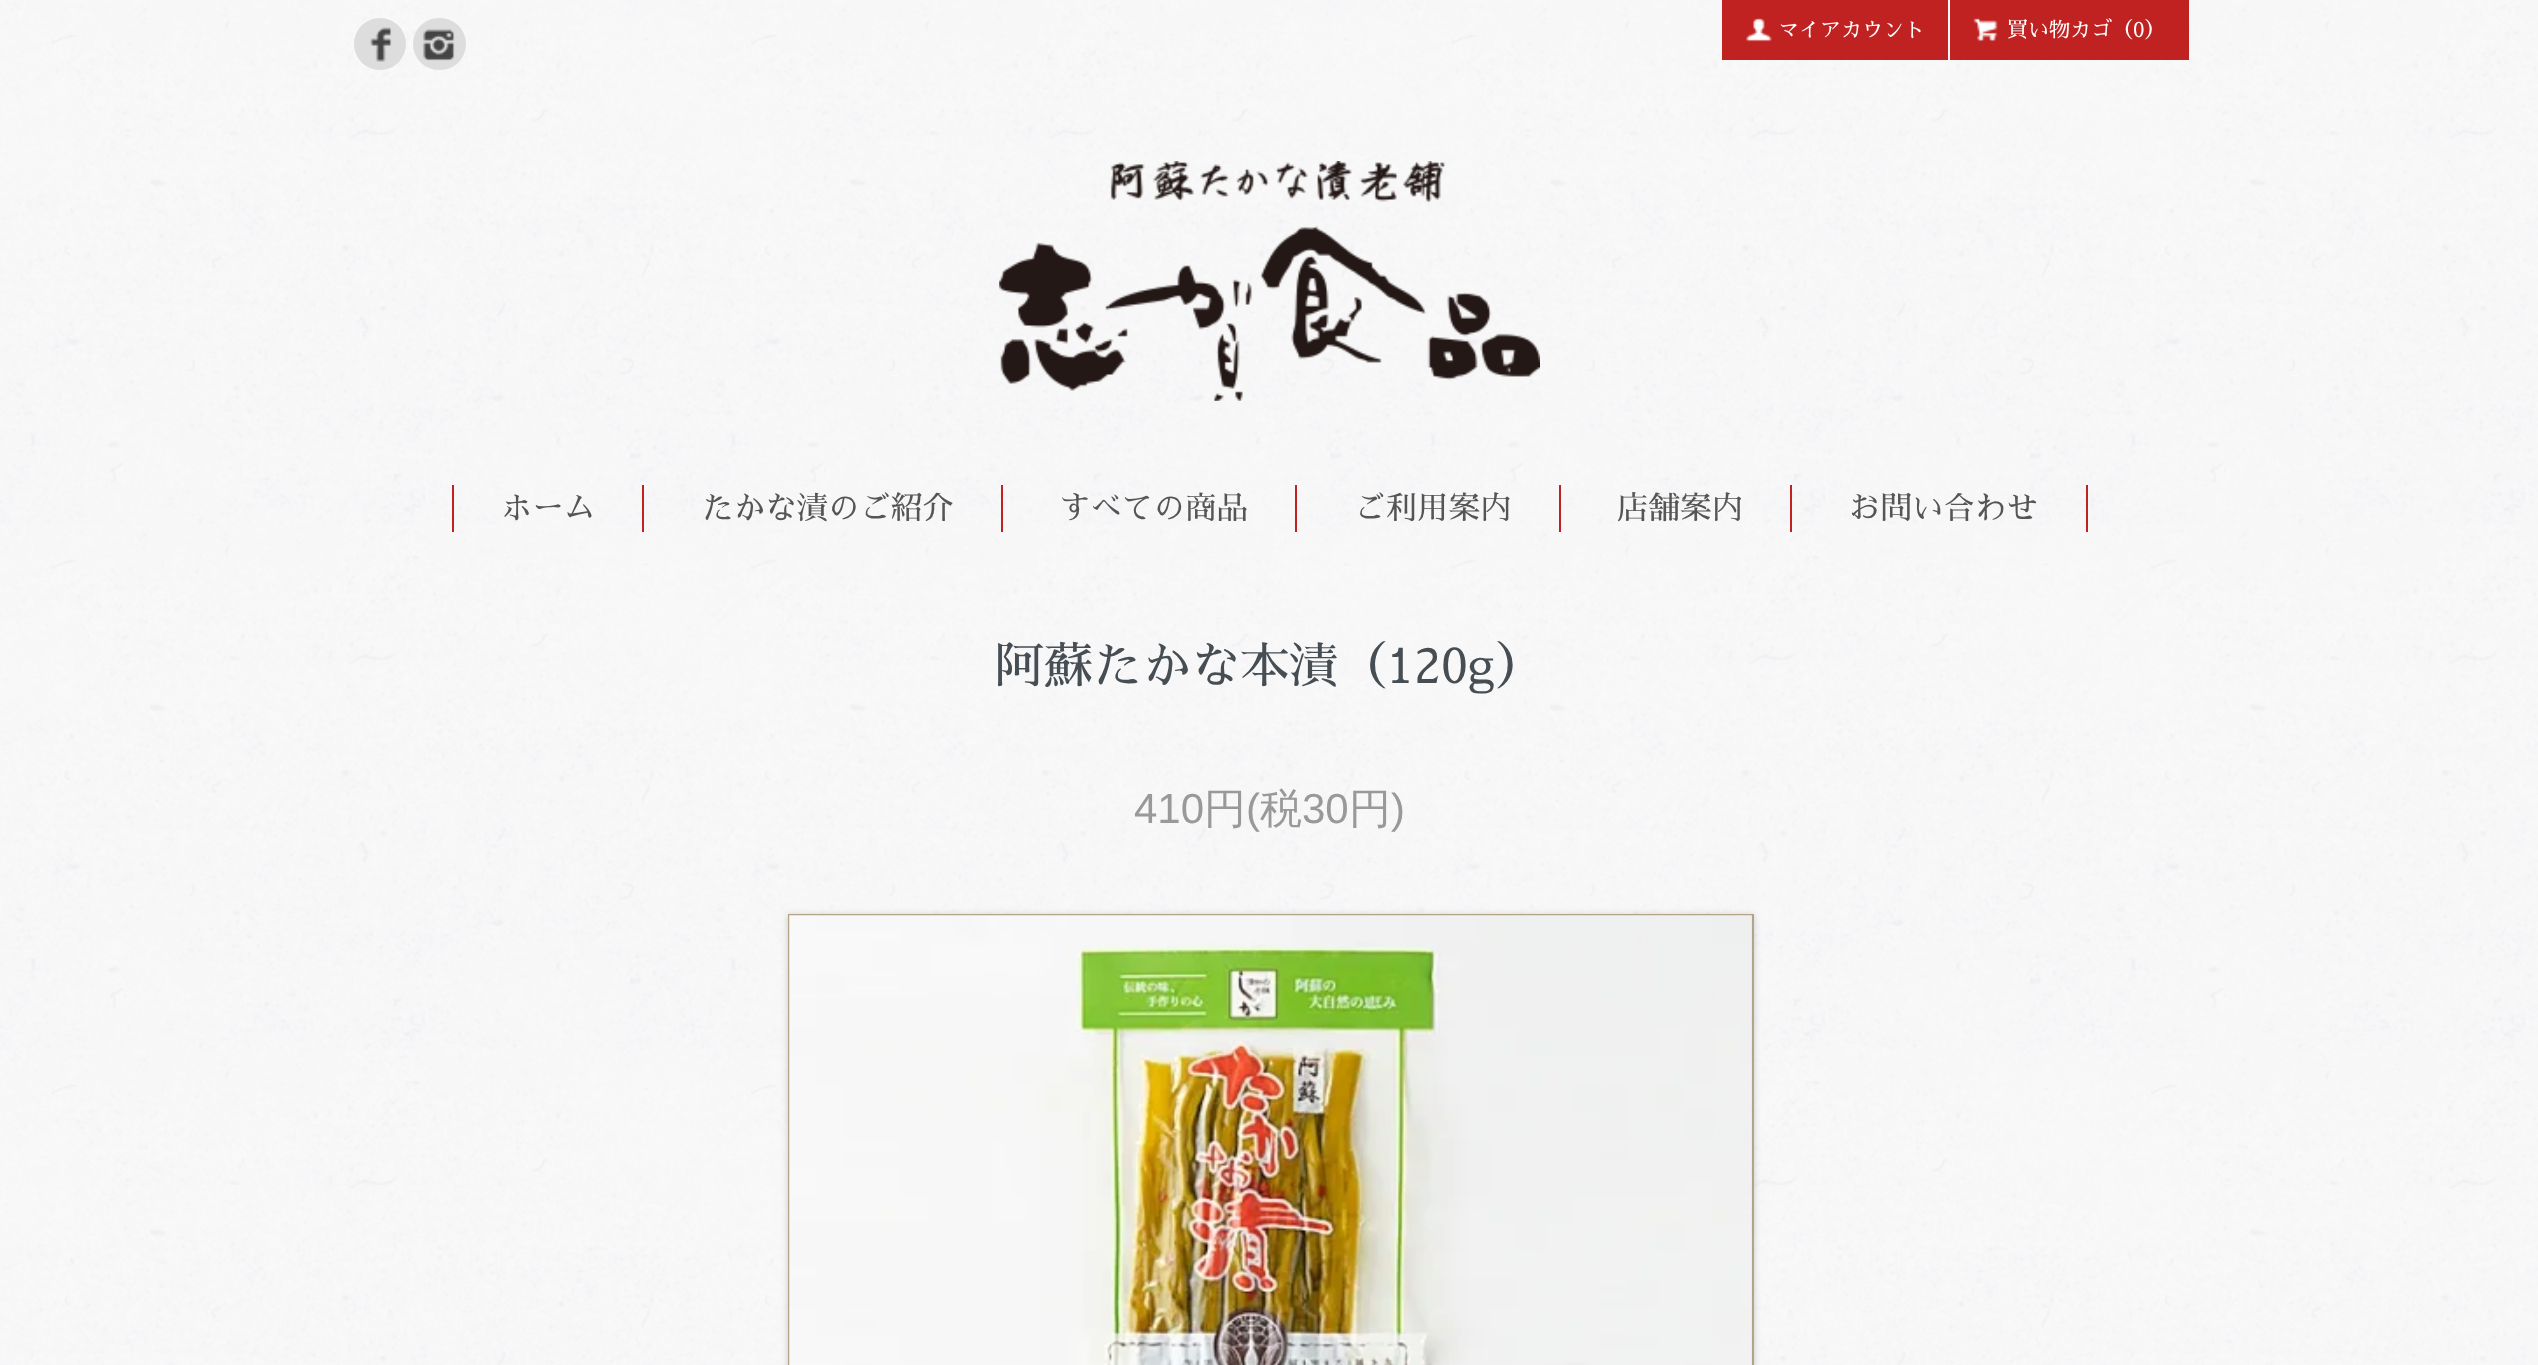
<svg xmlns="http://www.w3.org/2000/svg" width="2538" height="1365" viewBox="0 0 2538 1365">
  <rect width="100%" height="100%" fill="rgb(255,255,255)"/>
  <image x="0" y="0" width="2538" height="1365" href="pic1.png"/>
  <circle cx="380" cy="44" r="26" fill="rgb(221,221,221)"/>
  <image x="370" y="27" width="22" height="35" href="pic2.png"/>
  <rect x="413" y="18" width="53" height="52" rx="26" fill="rgb(221,221,221)"/>
  <image x="423" y="29" width="32" height="32" href="pic3.png"/>
  <rect x="1722" y="0" width="226" height="60" fill="rgb(192,34,34)"/>
  <image x="1746" y="17" width="26" height="25" href="pic4.png"/>
  <text x="1778" y="37" font-family="Sawarabi Mincho" font-size="21" fill="rgb(255,255,255)">マイアカウント</text>
  <rect x="1950" y="0" width="239" height="60" fill="rgb(192,34,34)"/>
  <image x="1973" y="17" width="25" height="25" href="pic5.png"/>
  <text x="2007" y="37" font-family="Sawarabi Mincho" font-size="21" fill="rgb(255,255,255)">買い物カゴ（0）</text>
  <image x="999" y="161" width="541" height="240" href="pic6.png"/>
  <rect x="642" y="485" width="2" height="47" fill="rgb(192,34,34)"/>
  <rect x="452" y="485" width="2" height="47" fill="rgb(192,34,34)"/>
  <text x="501" y="519" font-family="Sawarabi Mincho" font-size="31.5" fill="rgb(85,85,85)">ホーム</text>
  <rect x="1001" y="485" width="2" height="47" fill="rgb(192,34,34)"/>
  <text x="702" y="519" font-family="Sawarabi Mincho" font-size="31.5" fill="rgb(85,85,85)">たかな漬のご紹介</text>
  <rect x="1295" y="485" width="2" height="47" fill="rgb(192,34,34)"/>
  <text x="1059" y="519" font-family="Sawarabi Mincho" font-size="31.5" fill="rgb(85,85,85)">すべての商品</text>
  <rect x="1559" y="485" width="2" height="47" fill="rgb(192,34,34)"/>
  <text x="1354" y="519" font-family="Sawarabi Mincho" font-size="31.5" fill="rgb(85,85,85)">ご利用案内</text>
  <rect x="1790" y="485" width="2" height="47" fill="rgb(192,34,34)"/>
  <text x="1617" y="519" font-family="Sawarabi Mincho" font-size="31.5" fill="rgb(85,85,85)">店舗案内</text>
  <rect x="2086" y="485" width="2" height="47" fill="rgb(192,34,34)"/>
  <text x="1849" y="519" font-family="Sawarabi Mincho" font-size="31.5" fill="rgb(85,85,85)">お問い合わせ</text>
  <text x="995" y="683" font-family="Sawarabi Mincho" font-size="49" fill="rgb(70,78,84)">阿蘇たかな本漬（120g）</text>
  <text x="1134" y="823" font-family="Liberation Sans" font-size="42" fill="rgb(153,153,153)">410</text>
  <text x="1204" y="823" font-family="WenQuanYi Zen Hei" font-size="42" font-weight="500" fill="rgb(153,153,153)">円</text>
  <text x="1246" y="823" font-family="Liberation Sans" font-size="42" fill="rgb(153,153,153)">(</text>
  <text x="1260" y="823" font-family="WenQuanYi Zen Hei" font-size="42" font-weight="500" fill="rgb(153,153,153)">税</text>
  <text x="1302" y="823" font-family="Liberation Sans" font-size="42" fill="rgb(153,153,153)">30</text>
  <text x="1349" y="823" font-family="WenQuanYi Zen Hei" font-size="42" font-weight="500" fill="rgb(153,153,153)">円</text>
  <text x="1391" y="823" font-family="Liberation Sans" font-size="42" fill="rgb(153,153,153)">)</text>
  <rect x="788" y="915" width="966" height="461" fill="rgba(25,25,25,0.2)" filter="blur(3.5px)"/>
  <rect x="789" y="915" width="964" height="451" fill="none" stroke="rgb(178,164,135)" stroke-width="2"/>
  <image x="789" y="915" width="963" height="450" href="pic7.png"/>
</svg>
